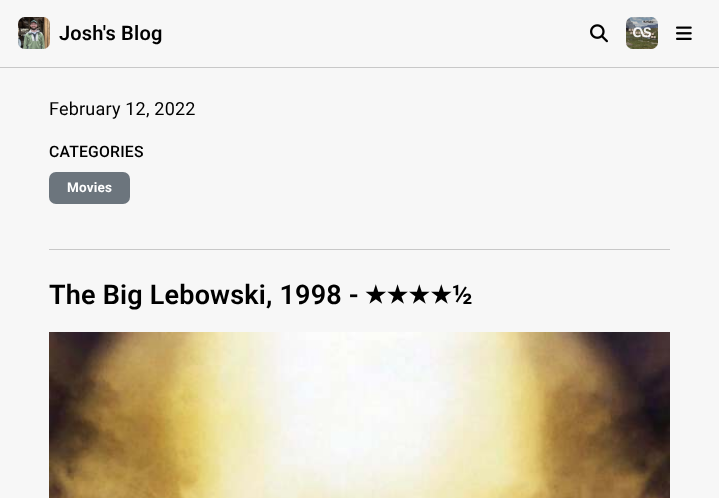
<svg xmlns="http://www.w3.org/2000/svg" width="719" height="498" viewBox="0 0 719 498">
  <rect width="100%" height="100%" fill="rgb(247,247,247)"/>
  <rect x="0" y="67" width="719" height="1" fill="rgb(200,200,200)"/>
  <image x="18" y="17" width="32" height="32" href="pic1.png"/>
  <text x="59" y="40" font-family="Roboto" font-size="20" font-weight="600" letter-spacing="0.2" fill="rgb(0,0,0)">Josh's Blog</text>
  <image x="590" y="24" width="18" height="19" href="pic2.png"/>
  <image x="626" y="17" width="32" height="32" href="pic3.png"/>
  <rect x="626" y="17" width="32" height="32" rx="7" fill="rgba(80,80,80,0.2)"/>
  <image x="633" y="27" width="18" height="11" href="pic4.png"/>
  <image x="676" y="26" width="16" height="14" href="pic5.png"/>
  <rect x="49" y="249" width="621" height="1" fill="rgb(200,200,200)"/>
  <text x="49" y="115" font-family="Roboto" font-size="18" letter-spacing="0.2" fill="rgb(0,0,0)">February 12, 2022</text>
  <text x="49" y="157" font-family="Roboto" font-size="15.75" font-weight="500" letter-spacing="0.2" fill="rgb(0,0,0)">CATEGORIES</text>
  <rect x="49" y="172" width="81" height="32" rx="7" fill="rgb(108,117,125)"/>
  <text x="67" y="192" font-family="Roboto" font-size="13.5" font-weight="bold" letter-spacing="0.2" fill="rgb(255,255,255)">Movies</text>
  <text x="49" y="304" font-family="Roboto" font-size="27" font-weight="600" letter-spacing="0.2" fill="rgb(0,0,0)">The Big Lebowski, 1998 -</text>
  <text x="365" y="304" font-family="FreeSans" font-size="27" font-weight="600" letter-spacing="0.2" fill="rgb(0,0,0)">★★★★</text>
  <text x="452" y="304" font-family="Roboto" font-size="27" font-weight="600" letter-spacing="0.2" fill="rgb(0,0,0)">½</text>
  <image x="49" y="332" width="621" height="166" href="pic6.png"/>
</svg>
